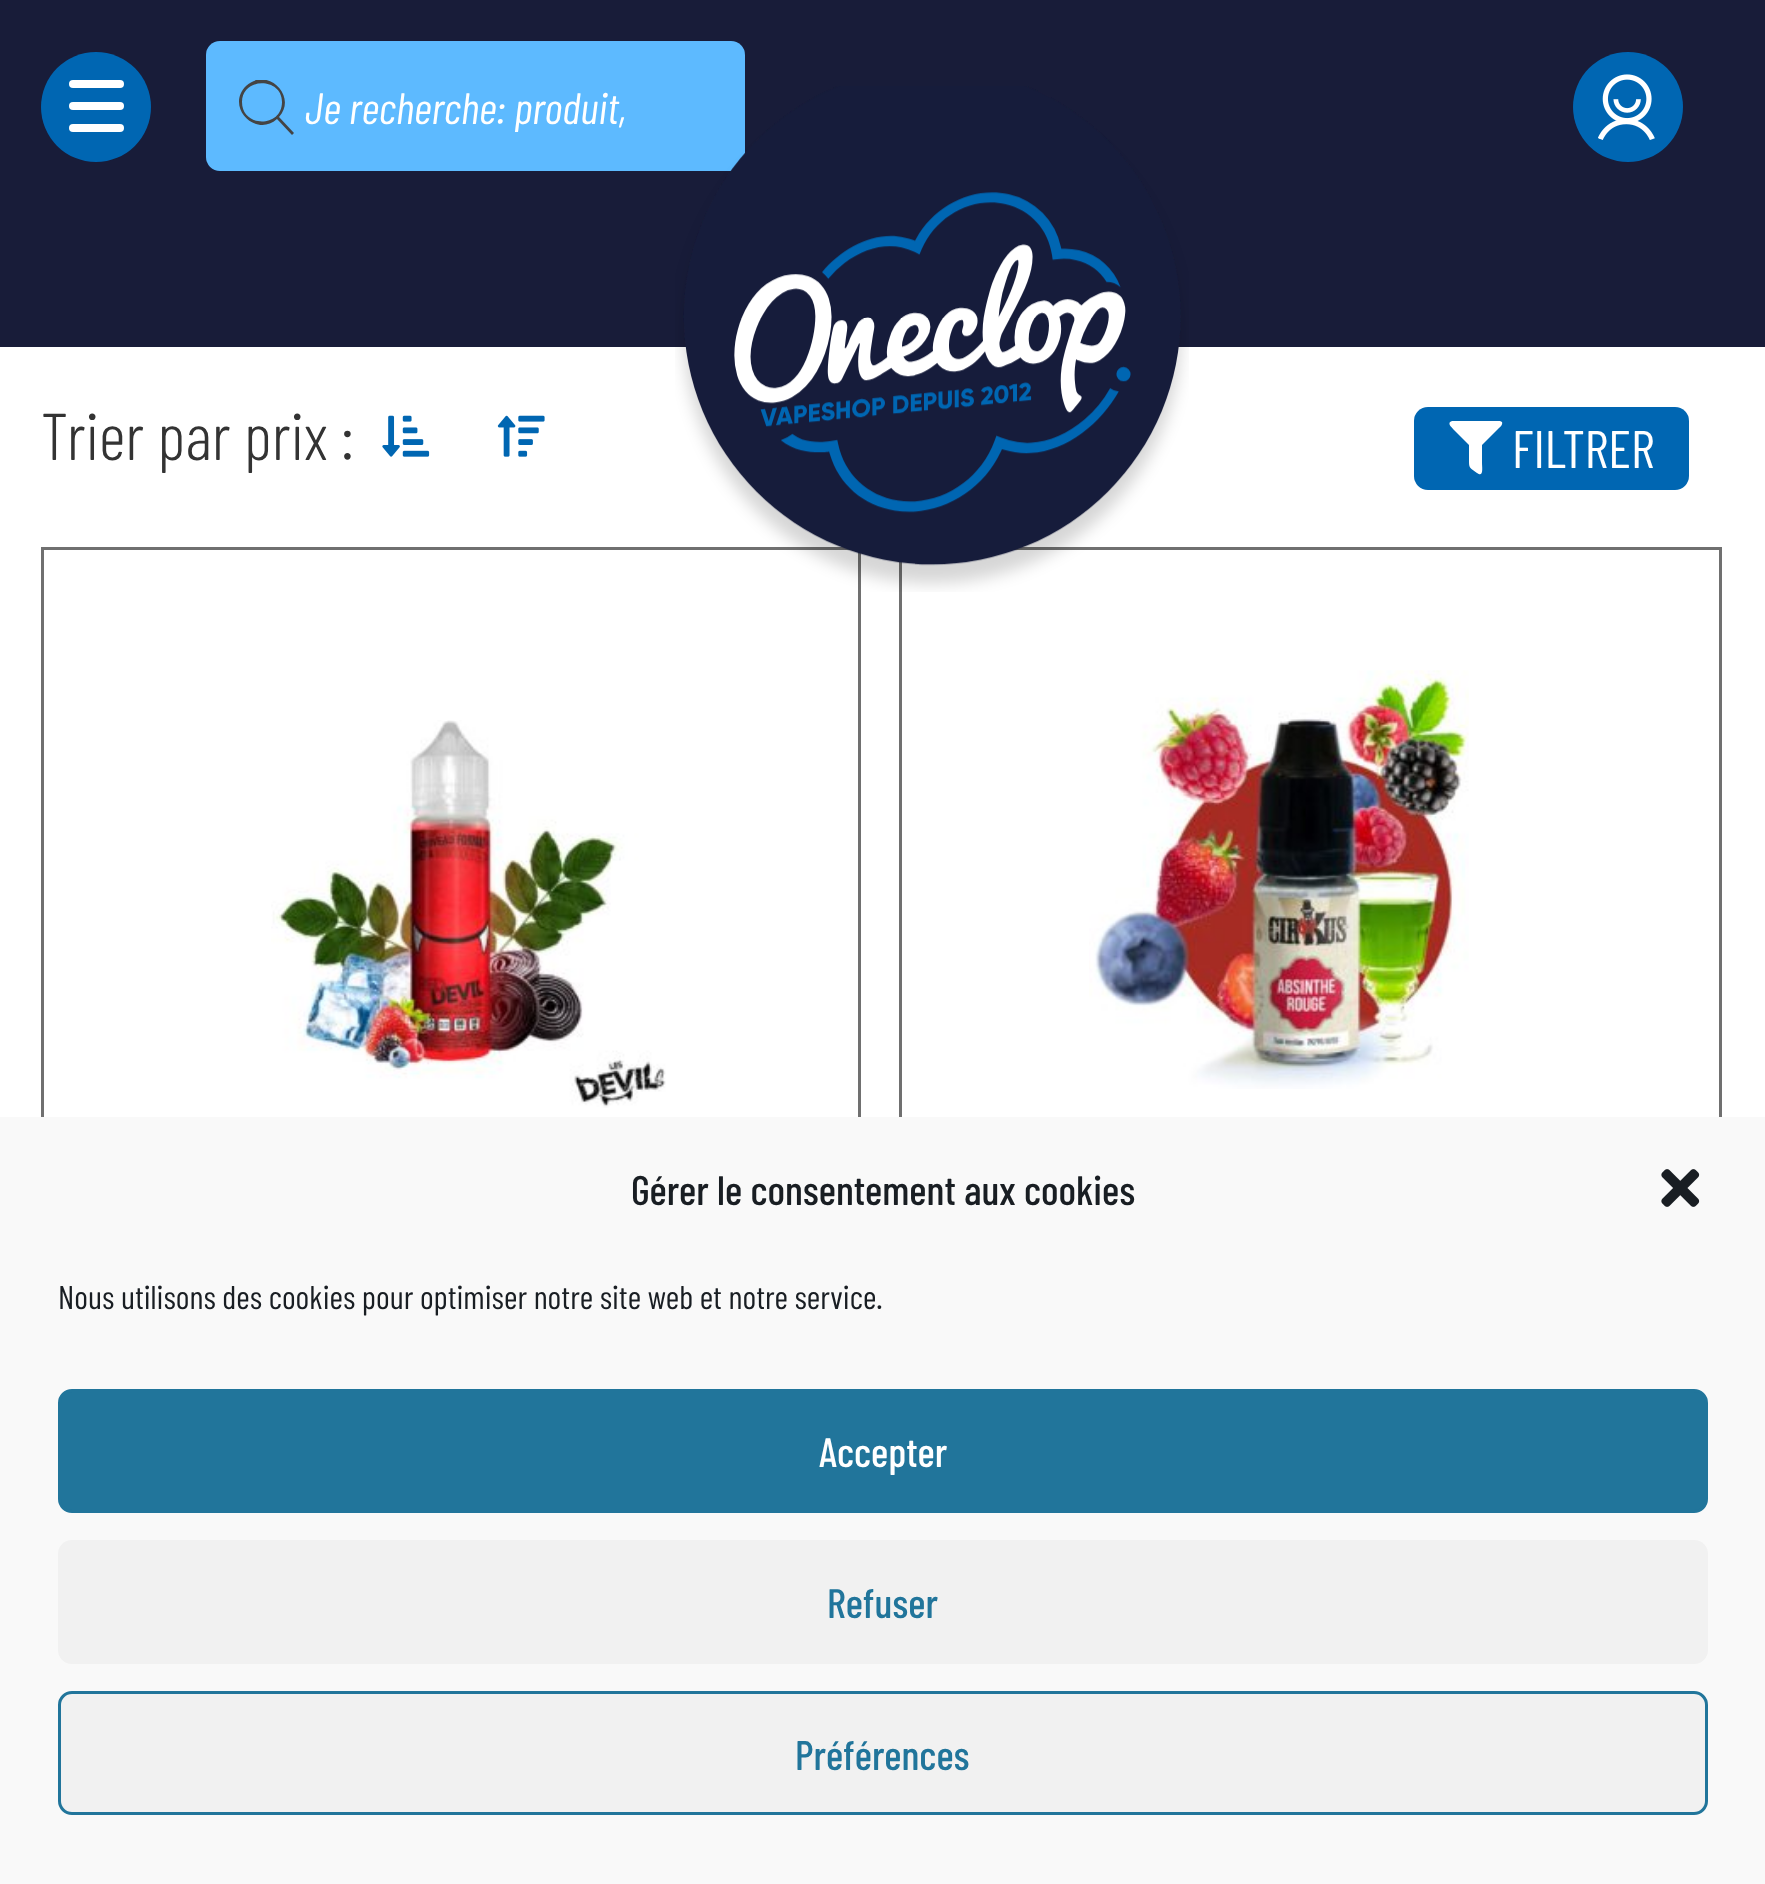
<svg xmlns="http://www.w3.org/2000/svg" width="1765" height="1884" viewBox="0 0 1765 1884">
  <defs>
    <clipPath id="clip1"><rect x="239" y="80" width="55" height="55"/></clipPath>
    <clipPath id="clip2"><rect x="305" y="80" width="341" height="52"/></clipPath>
  </defs>
  <rect width="100%" height="100%" fill="rgb(255,255,255)"/>
  <rect x="0" y="0" width="1765" height="347" fill="rgb(24,28,57)"/>
  <circle cx="96" cy="107" r="55" fill="rgb(0,102,178)"/>
  <rect x="69" y="80" width="55" height="8" rx="4" fill="rgb(255,255,255)"/>
  <rect x="69" y="102" width="55" height="8" rx="4" fill="rgb(255,255,255)"/>
  <rect x="69" y="124" width="55" height="8" rx="4" fill="rgb(255,255,255)"/>
  <rect x="206" y="41" width="539" height="130" rx="14" fill="rgb(93,186,255)"/>
  <g clip-path="url(#clip1)">
    <path d="M294 133L279 117C298 96 267 66 246 86C225 107 256 138 277 119L292 135ZM242 102C242 77 282 77 282 102C282 128 242 128 242 102Z" fill="rgb(68,68,68)"/>
  </g>
  <g clip-path="url(#clip2)">
    <text x="305" y="124" font-family="Barlow Condensed" font-size="44" font-style="italic" fill="rgb(255,255,255)">Je recherche: produit,</text>
  </g>
  <rect x="42.5" y="548.5" width="817" height="1227" fill="none" stroke="rgb(112,112,112)" stroke-width="3"/>
  <rect x="900.5" y="548.5" width="820" height="1227" fill="none" stroke="rgb(112,112,112)" stroke-width="3"/>
  <image x="675" y="86" width="514" height="506" href="pic1.png"/>
  <circle cx="1628" cy="107" r="55" fill="rgb(0,102,178)"/>
  <image x="1598" y="74" width="57" height="66" href="pic2.png"/>
  <text x="41" y="460" font-family="Barlow Condensed" font-size="66" font-weight="300" fill="rgb(51,51,51)">Trier par prix :</text>
  <image x="382" y="415" width="48" height="42" href="pic3.png"/>
  <image x="497" y="415" width="48" height="42" href="pic4.png"/>
  <rect x="1414" y="407" width="275" height="83" rx="14" fill="rgb(0,102,178)"/>
  <path d="M1500 421L1502 422C1503 425 1500 427 1498 429L1482 445V463C1482 467 1484 478 1477 473C1471 468 1469 469 1469 462V445L1453 429C1452 427 1448 425 1450 422L1452 421Z" fill="rgb(255,255,255)"/>
  <text x="1512" y="468" font-family="Barlow Condensed" font-size="53" fill="rgb(255,255,255)">FILTRER</text>
  <image x="271" y="720" width="395" height="388" href="pic5.png"/>
  <image x="1089" y="670" width="380" height="419" href="pic6.png"/>
  <rect x="0" y="1117" width="1765" height="767" fill="rgb(249,249,249)"/>
  <text x="631" y="1205" font-family="Barlow Condensed" font-size="41.25" font-weight="500" fill="rgb(25,30,35)">Gérer le consentement aux cookies</text>
  <image x="1661" y="1169" width="39" height="38" href="pic7.png"/>
  <text x="58" y="1309" font-family="Barlow Condensed" font-size="33" fill="rgb(25,30,35)">Nous utilisons des cookies pour optimiser notre site web et notre service.</text>
  <rect x="59.5" y="1390.5" width="1647" height="121" rx="12.5" fill="rgb(33,117,155)" stroke="rgb(33,117,155)" stroke-width="3"/>
  <text x="819" y="1467" font-family="Barlow Condensed" font-size="41.25" font-weight="500" fill="rgb(255,255,255)">Accepter</text>
  <rect x="58" y="1540" width="1650" height="124" rx="14" fill="rgb(241,241,241)"/>
  <text x="827" y="1618" font-family="Barlow Condensed" font-size="41.25" font-weight="500" fill="rgb(33,117,155)">Refuser</text>
  <rect x="59.5" y="1692.5" width="1647" height="121" rx="12.5" fill="rgb(241,241,241)" stroke="rgb(33,117,155)" stroke-width="3"/>
  <text x="795" y="1770" font-family="Barlow Condensed" font-size="41.25" font-weight="500" fill="rgb(33,117,155)">Préférences</text>
</svg>
